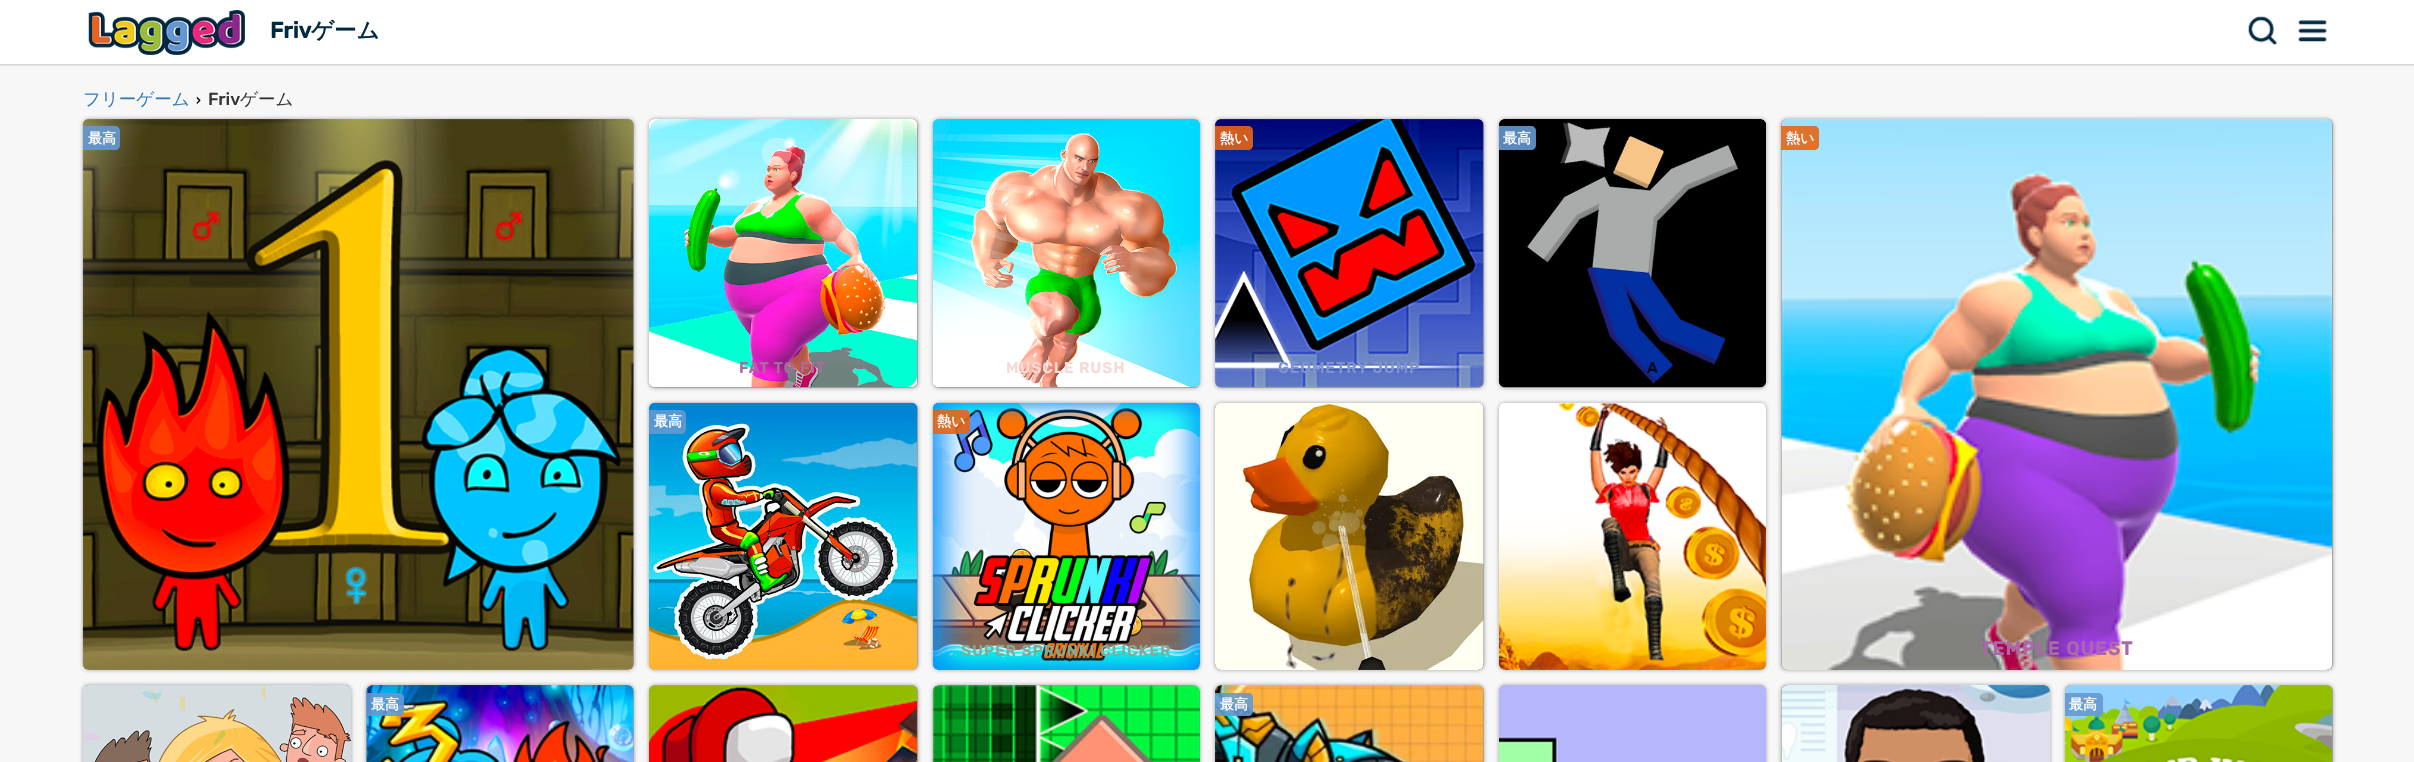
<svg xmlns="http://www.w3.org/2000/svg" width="2414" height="762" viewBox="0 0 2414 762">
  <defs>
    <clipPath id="clip1"><path d="M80 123H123V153H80ZM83 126H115C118 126 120 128 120 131V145C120 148 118 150 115 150H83Z" clip-rule="evenodd"/></clipPath>
    <clipPath id="clip2"><path d="M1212 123H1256V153H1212ZM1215 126H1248C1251 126 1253 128 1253 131V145C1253 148 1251 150 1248 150H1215Z" clip-rule="evenodd"/></clipPath>
    <clipPath id="clip3"><path d="M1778 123H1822V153H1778ZM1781 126H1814C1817 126 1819 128 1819 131V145C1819 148 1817 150 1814 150H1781Z" clip-rule="evenodd"/></clipPath>
    <clipPath id="clip4"><path d="M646 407H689V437H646ZM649 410H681C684 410 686 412 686 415V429C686 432 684 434 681 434H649Z" clip-rule="evenodd"/></clipPath>
    <clipPath id="clip5"><path d="M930 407H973V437H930ZM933 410H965C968 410 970 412 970 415V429C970 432 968 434 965 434H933Z" clip-rule="evenodd"/></clipPath>
    <clipPath id="clip6"><path d="M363 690H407V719H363ZM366 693H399C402 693 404 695 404 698V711C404 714 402 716 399 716H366Z" clip-rule="evenodd"/></clipPath>
    <clipPath id="clip7"><path d="M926 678H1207V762H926ZM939 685H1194C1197.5 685 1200 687.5 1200 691V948C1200 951.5 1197.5 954 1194 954H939C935.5 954 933 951.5 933 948V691C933 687.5 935.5 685 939 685Z" clip-rule="evenodd"/></clipPath>
    <clipPath id="clip8"><path d="M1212 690H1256V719H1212ZM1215 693H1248C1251 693 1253 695 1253 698V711C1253 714 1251 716 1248 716H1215Z" clip-rule="evenodd"/></clipPath>
    <clipPath id="clip9"><path d="M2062 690H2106V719H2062ZM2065 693H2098C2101 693 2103 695 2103 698V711C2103 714 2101 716 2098 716H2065Z" clip-rule="evenodd"/></clipPath>
  </defs>
  <rect width="100%" height="100%" fill="rgb(247,247,247)"/>
  <rect x="-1" y="-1" width="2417" height="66" fill="rgba(0,0,0,0.2)" filter="blur(1px)"/>
  <rect x="0" y="0" width="2414" height="64" fill="rgb(255,255,255)"/>
  <image x="88" y="10" width="157" height="45" href="pic1.png"/>
  <text x="270" y="38" font-family="Rubik" font-size="22.5" font-weight="bold" fill="rgb(0,42,65)">Friv</text>
  <text x="311" y="38" font-family="WenQuanYi Zen Hei" font-size="22.5" font-weight="bold" fill="rgb(0,42,65)">ゲーム</text>
  <image x="2248" y="16" width="29" height="29" href="pic2.png"/>
  <image x="2298" y="20" width="29" height="22" href="pic3.png"/>
  <text x="83" y="105" font-family="WenQuanYi Zen Hei" font-size="17.5" font-weight="500" fill="rgb(51,122,183)">フリーゲーム</text>
  <text x="196" y="105" font-family="Rubik" font-size="14" font-weight="500" fill="rgb(0,0,0)">›</text>
  <text x="208" y="105" font-family="Rubik" font-size="17.5" font-weight="500" fill="rgb(51,51,51)">Friv</text>
  <text x="240" y="105" font-family="WenQuanYi Zen Hei" font-size="17.5" font-weight="500" fill="rgb(51,51,51)">ゲーム</text>
  <rect x="83" y="119" width="551" height="551" rx="6" fill="rgba(0,0,0,0.35)" filter="blur(2px)"/>
  <rect x="83" y="119" width="551" height="551" rx="6" fill="rgba(0,0,0,0.18)"/>
  <image x="82" y="119" width="552" height="551" href="pic4.png"/>
  <g clip-path="url(#clip1)">
    <rect x="83" y="126" width="37" height="24" rx="5" fill="rgba(0,0,0,0.3)" filter="blur(0.5px)"/>
  </g>
  <path d="M83 126H115C118 126 120 128 120 131V145C120 148 118 150 115 150H83Z" fill="rgba(100,153,210,0.9)"/>
  <text x="88" y="143" font-family="WenQuanYi Zen Hei" font-size="14" font-weight="bold" fill="rgb(254,254,254)">最高</text>
  <rect x="649" y="119" width="269" height="269" rx="6" fill="rgba(0,0,0,0.35)" filter="blur(2px)"/>
  <rect x="649" y="119" width="269" height="269" rx="6" fill="rgba(0,0,0,0.18)"/>
  <image x="649" y="119" width="269" height="269" href="pic5.png"/>
  <text x="739" y="373" font-family="Rubik" font-size="15" font-weight="bold" letter-spacing="1.25" fill="rgb(171,106,158)">FAT TO FIT</text>
  <rect x="933" y="119" width="267" height="269" rx="6" fill="rgba(0,0,0,0.35)" filter="blur(2px)"/>
  <rect x="933" y="119" width="267" height="269" rx="6" fill="rgba(0,0,0,0.18)"/>
  <image x="932" y="119" width="268" height="269" href="pic6.png"/>
  <text x="1006" y="373" font-family="Rubik" font-size="15" font-weight="bold" letter-spacing="1.25" fill="rgb(247,218,211)">MUSCLE RUSH</text>
  <rect x="1215" y="119" width="269" height="269" rx="6" fill="rgba(0,0,0,0.35)" filter="blur(2px)"/>
  <rect x="1215" y="119" width="269" height="269" rx="6" fill="rgba(0,0,0,0.18)"/>
  <image x="1215" y="119" width="269" height="269" href="pic7.png"/>
  <g clip-path="url(#clip2)">
    <rect x="1215" y="126" width="38" height="24" rx="5" fill="rgba(0,0,0,0.3)" filter="blur(0.5px)"/>
  </g>
  <path d="M1215 126H1248C1251 126 1253 128 1253 131V145C1253 148 1251 150 1248 150H1215Z" fill="rgba(231,101,20,0.9)"/>
  <text x="1220" y="143" font-family="WenQuanYi Zen Hei" font-size="14" font-weight="bold" fill="rgb(254,254,254)">熱い</text>
  <text x="1278" y="373" font-family="Rubik" font-size="15" font-weight="bold" letter-spacing="1.25" fill="rgb(127,146,208)">GEOMETRY JUMP</text>
  <rect x="1499" y="119" width="267" height="269" rx="6" fill="rgba(0,0,0,0.35)" filter="blur(2px)"/>
  <rect x="1499" y="119" width="267" height="269" rx="6" fill="rgba(0,0,0,0.18)"/>
  <image x="1499" y="119" width="267" height="269" href="pic8.png"/>
  <path d="M1499 126H1531C1534 126 1536 128 1536 131V145C1536 148 1534 150 1531 150H1499Z" fill="rgba(100,153,210,0.9)"/>
  <text x="1503" y="143" font-family="WenQuanYi Zen Hei" font-size="14" font-weight="bold" fill="rgb(254,254,254)">最高</text>
  <text x="1647" y="373" font-family="Rubik" font-size="15" font-weight="bold" letter-spacing="1.25" fill="rgb(2,9,31)">A</text>
  <rect x="1781" y="119" width="552" height="551" rx="6" fill="rgba(0,0,0,0.35)" filter="blur(2px)"/>
  <rect x="1781" y="119" width="552" height="551" rx="6" fill="rgba(0,0,0,0.18)"/>
  <image x="1781" y="119" width="552" height="551" href="pic9.png"/>
  <g clip-path="url(#clip3)">
    <rect x="1781" y="126" width="38" height="24" rx="5" fill="rgba(0,0,0,0.3)" filter="blur(0.5px)"/>
  </g>
  <path d="M1781 126H1814C1817 126 1819 128 1819 131V145C1819 148 1817 150 1814 150H1781Z" fill="rgba(231,101,20,0.9)"/>
  <text x="1786" y="143" font-family="WenQuanYi Zen Hei" font-size="14" font-weight="bold" fill="rgb(254,254,254)">熱い</text>
  <text x="1980" y="655" font-family="Rubik" font-size="18.75" font-weight="bold" letter-spacing="1.25" fill="rgb(171,103,172)">TEMPLE QUEST</text>
  <rect x="649" y="403" width="269" height="267" rx="6" fill="rgba(0,0,0,0.35)" filter="blur(2px)"/>
  <rect x="649" y="403" width="269" height="267" rx="6" fill="rgba(0,0,0,0.18)"/>
  <image x="649" y="402" width="269" height="268" href="pic10.png"/>
  <g clip-path="url(#clip4)">
    <rect x="649" y="410" width="37" height="24" rx="5" fill="rgba(0,0,0,0.3)" filter="blur(0.5px)"/>
  </g>
  <path d="M649 410H681C684 410 686 412 686 415V429C686 432 684 434 681 434H649Z" fill="rgba(100,153,210,0.9)"/>
  <text x="654" y="426" font-family="WenQuanYi Zen Hei" font-size="14" font-weight="bold" fill="rgb(254,254,254)">最高</text>
  <rect x="933" y="403" width="267" height="267" rx="6" fill="rgba(0,0,0,0.35)" filter="blur(2px)"/>
  <rect x="933" y="403" width="267" height="267" rx="6" fill="rgba(0,0,0,0.18)"/>
  <image x="932" y="402" width="268" height="268" href="pic11.png"/>
  <g clip-path="url(#clip5)">
    <rect x="933" y="410" width="37" height="24" rx="5" fill="rgba(0,0,0,0.3)" filter="blur(0.5px)"/>
  </g>
  <path d="M933 410H965C968 410 970 412 970 415V429C970 432 968 434 965 434H933Z" fill="rgba(231,101,20,0.9)"/>
  <text x="937" y="426" font-family="WenQuanYi Zen Hei" font-size="14" font-weight="bold" fill="rgb(254,254,254)">熱い</text>
  <text x="961" y="656" font-family="Rubik" font-size="15" font-weight="bold" letter-spacing="1.25" fill="rgb(128,172,154)">SUPER SPRUNKI CLICKER</text>
  <rect x="1215" y="403" width="269" height="267" rx="6" fill="rgba(0,0,0,0.35)" filter="blur(2px)"/>
  <rect x="1215" y="403" width="269" height="267" rx="6" fill="rgba(0,0,0,0.18)"/>
  <image x="1215" y="403" width="269" height="267" href="pic12.png"/>
  <rect x="1499" y="403" width="267" height="267" rx="6" fill="rgba(0,0,0,0.35)" filter="blur(2px)"/>
  <rect x="1499" y="403" width="267" height="267" rx="6" fill="rgba(0,0,0,0.18)"/>
  <image x="1499" y="402" width="267" height="268" href="pic13.png"/>
  <rect x="83" y="685" width="268" height="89" rx="6" fill="rgba(0,0,0,0.35)" filter="blur(2px)"/>
  <rect x="83" y="685" width="268" height="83" rx="6" fill="rgba(0,0,0,0.18)"/>
  <image x="83" y="685" width="268" height="77" href="pic14.png"/>
  <rect x="366" y="685" width="268" height="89" rx="6" fill="rgba(0,0,0,0.35)" filter="blur(2px)"/>
  <rect x="366" y="685" width="268" height="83" rx="6" fill="rgba(0,0,0,0.18)"/>
  <image x="366" y="685" width="268" height="77" href="pic15.png"/>
  <g clip-path="url(#clip6)">
    <rect x="366" y="693" width="38" height="23" rx="5" fill="rgba(0,0,0,0.3)" filter="blur(0.5px)"/>
  </g>
  <path d="M366 693H399C402 693 404 695 404 698V711C404 714 402 716 399 716H366Z" fill="rgba(100,153,210,0.9)"/>
  <text x="371" y="709" font-family="WenQuanYi Zen Hei" font-size="14" font-weight="bold" fill="rgb(254,254,254)">最高</text>
  <rect x="649" y="685" width="269" height="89" rx="6" fill="rgba(0,0,0,0.35)" filter="blur(2px)"/>
  <rect x="649" y="685" width="269" height="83" rx="6" fill="rgba(0,0,0,0.18)"/>
  <image x="649" y="685" width="269" height="77" href="pic16.png"/>
  <g clip-path="url(#clip7)">
    <rect x="933" y="685" width="267" height="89" rx="6" fill="rgba(0,0,0,0.35)" filter="blur(2px)"/>
  </g>
  <rect x="933" y="685" width="267" height="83" rx="6" fill="rgba(0,0,0,0.18)"/>
  <image x="932" y="685" width="268" height="77" href="pic17.png"/>
  <rect x="1215" y="685" width="269" height="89" rx="6" fill="rgba(0,0,0,0.35)" filter="blur(2px)"/>
  <rect x="1215" y="685" width="269" height="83" rx="6" fill="rgba(0,0,0,0.18)"/>
  <image x="1215" y="685" width="269" height="77" href="pic18.png"/>
  <g clip-path="url(#clip8)">
    <rect x="1215" y="693" width="38" height="23" rx="5" fill="rgba(0,0,0,0.3)" filter="blur(0.5px)"/>
  </g>
  <path d="M1215 693H1248C1251 693 1253 695 1253 698V711C1253 714 1251 716 1248 716H1215Z" fill="rgba(100,153,210,0.9)"/>
  <text x="1220" y="709" font-family="WenQuanYi Zen Hei" font-size="14" font-weight="bold" fill="rgb(254,254,254)">最高</text>
  <rect x="1499" y="685" width="267" height="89" rx="6" fill="rgba(0,0,0,0.35)" filter="blur(2px)"/>
  <rect x="1499" y="685" width="267" height="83" rx="6" fill="rgba(0,0,0,0.18)"/>
  <image x="1499" y="685" width="267" height="77" href="pic19.png"/>
  <rect x="1781" y="685" width="269" height="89" rx="6" fill="rgba(0,0,0,0.35)" filter="blur(2px)"/>
  <rect x="1781" y="685" width="269" height="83" rx="6" fill="rgba(0,0,0,0.18)"/>
  <image x="1781" y="685" width="269" height="77" href="pic20.png"/>
  <rect x="2065" y="685" width="268" height="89" rx="6" fill="rgba(0,0,0,0.35)" filter="blur(2px)"/>
  <rect x="2065" y="685" width="268" height="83" rx="6" fill="rgba(0,0,0,0.18)"/>
  <image x="2065" y="685" width="268" height="77" href="pic21.png"/>
  <g clip-path="url(#clip9)">
    <rect x="2065" y="693" width="38" height="23" rx="5" fill="rgba(0,0,0,0.3)" filter="blur(0.5px)"/>
  </g>
  <path d="M2065 693H2098C2101 693 2103 695 2103 698V711C2103 714 2101 716 2098 716H2065Z" fill="rgba(100,153,210,0.9)"/>
  <text x="2069" y="709" font-family="WenQuanYi Zen Hei" font-size="14" font-weight="bold" fill="rgb(254,254,254)">最高</text>
</svg>
